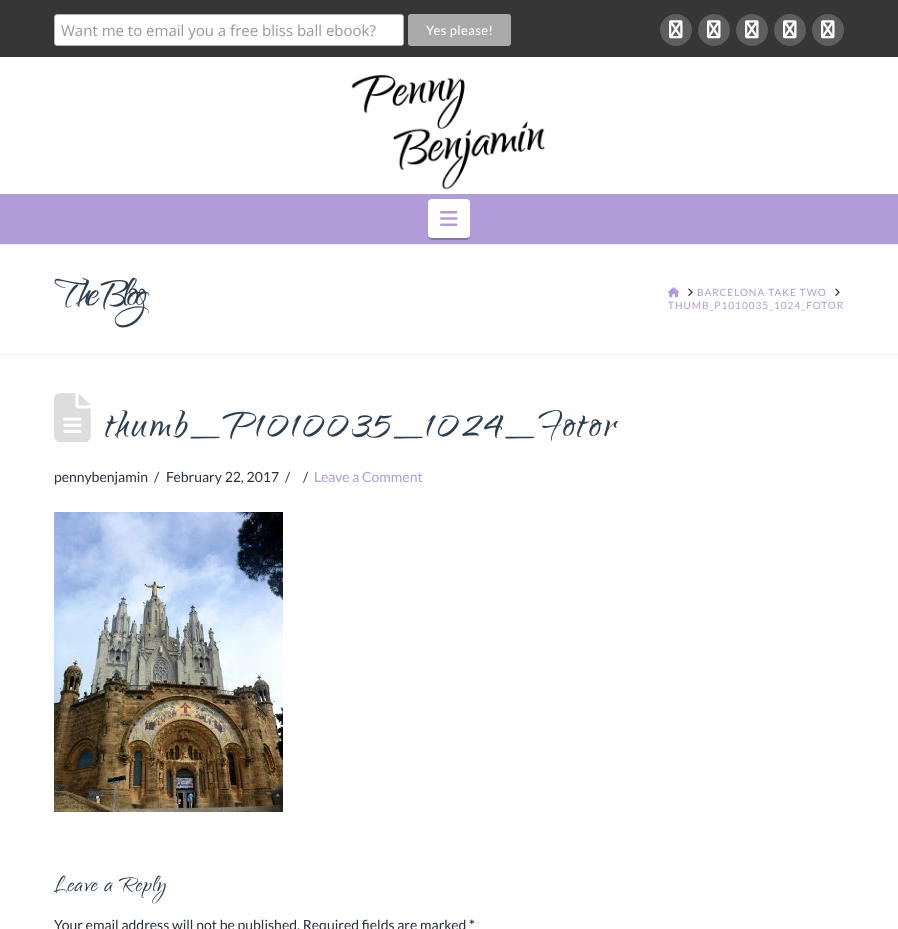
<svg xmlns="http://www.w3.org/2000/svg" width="898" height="929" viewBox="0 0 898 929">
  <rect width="100%" height="100%" fill="rgb(255,255,255)"/>
  <rect x="0" y="0" width="898" height="57" fill="rgb(54,54,54)"/>
  <rect x="54.5" y="14.5" width="349" height="31" rx="2.5" fill="rgb(255,255,255)" stroke="rgb(171,176,178)"/>
  <text x="61" y="36" font-family="Open Sans" font-size="15" fill="rgb(153,153,153)">Want me to email you a free bliss ball ebook?</text>
  <rect x="408" y="14" width="103" height="32" rx="3" fill="rgb(170,170,170)"/>
  <text x="426" y="35" font-family="Lato" font-size="13" letter-spacing="0.4" fill="rgb(255,255,255)">Yes please!</text>
  <circle cx="676" cy="30" r="16" fill="rgb(94,94,94)"/>
  <image x="669" y="20" width="14" height="19" href="pic1.png"/>
  <circle cx="714" cy="30" r="16" fill="rgb(94,94,94)"/>
  <image x="707" y="20" width="14" height="19" href="pic1.png"/>
  <circle cx="752" cy="30" r="16" fill="rgb(94,94,94)"/>
  <image x="745" y="20" width="14" height="19" href="pic1.png"/>
  <circle cx="790" cy="30" r="16" fill="rgb(94,94,94)"/>
  <image x="783" y="20" width="14" height="19" href="pic1.png"/>
  <circle cx="828" cy="30" r="16" fill="rgb(94,94,94)"/>
  <image x="821" y="20" width="14" height="19" href="pic1.png"/>
  <image x="351" y="74" width="194" height="116" href="pic2.png"/>
  <rect x="0" y="194" width="898" height="50" fill="rgb(177,156,217)"/>
  <path d="M428 234C428 241 431 240 438 240H460C467 240 470 241 470 234C470 236 468 238 466 238H432C430 238 428 236 428 234Z" fill="rgb(133,117,163)"/>
  <rect x="428" y="199" width="42" height="39" rx="4" fill="rgb(255,255,255)"/>
  <image x="440" y="211" width="18" height="15" href="pic3.png"/>
  <rect x="0" y="244" width="898" height="1" fill="rgb(242,242,242)"/>
  <rect x="0" y="354" width="898" height="1" fill="rgb(242,242,242)"/>
  <text x="54" y="305" font-family="Qwigley" font-size="49" letter-spacing="-3.75" fill="rgb(44,62,80)">The Blog</text>
  <image x="668" y="287" width="12" height="11" href="pic4.png"/>
  <image x="688" y="288" width="5" height="8" href="pic5.png"/>
  <text x="697" y="296" font-family="Lato" font-size="10" letter-spacing="1" fill="rgb(177,156,217)">BARCELONA TAKE TWO</text>
  <image x="835" y="288" width="5" height="8" href="pic5.png"/>
  <text x="668" y="309" font-family="Lato" font-size="10" letter-spacing="1" fill="rgb(177,156,217)">THUMB_P1010035_1024_FOTOR</text>
  <image x="54" y="393" width="37" height="50" href="pic6.png"/>
  <text x="105" y="436" font-family="Qwigley" font-size="49" letter-spacing="2.45" fill="rgb(44,62,80)">thumb_P1010035_1024_Fotor</text>
  <g font-family="Lato" font-size="14" fill="rgb(40,50,63)">
    <text x="54" y="482">pennybenjamin</text>
    <text x="154" y="482">/</text>
    <text x="166" y="482">February 22, 2017</text>
    <text x="285" y="482">/</text>
    <text x="303" y="482">/</text>
  </g>
  <text x="314" y="482" font-family="Lato" font-size="14" fill="rgb(177,156,217)">Leave a Comment</text>
  <image x="54" y="512" width="229" height="300" href="pic7.png"/>
  <text x="54" y="891" font-family="Qwigley" font-size="28" letter-spacing="0.6" fill="rgb(44,62,80)">Leave a Reply</text>
  <text x="54" y="930" font-family="Lato" font-size="14" fill="rgb(40,50,63)">Your email address will not be published. Required fields are marked</text>
  <text x="469" y="930" font-family="Lato" font-size="14" font-weight="bold" fill="rgb(40,50,63)">*</text>
</svg>
